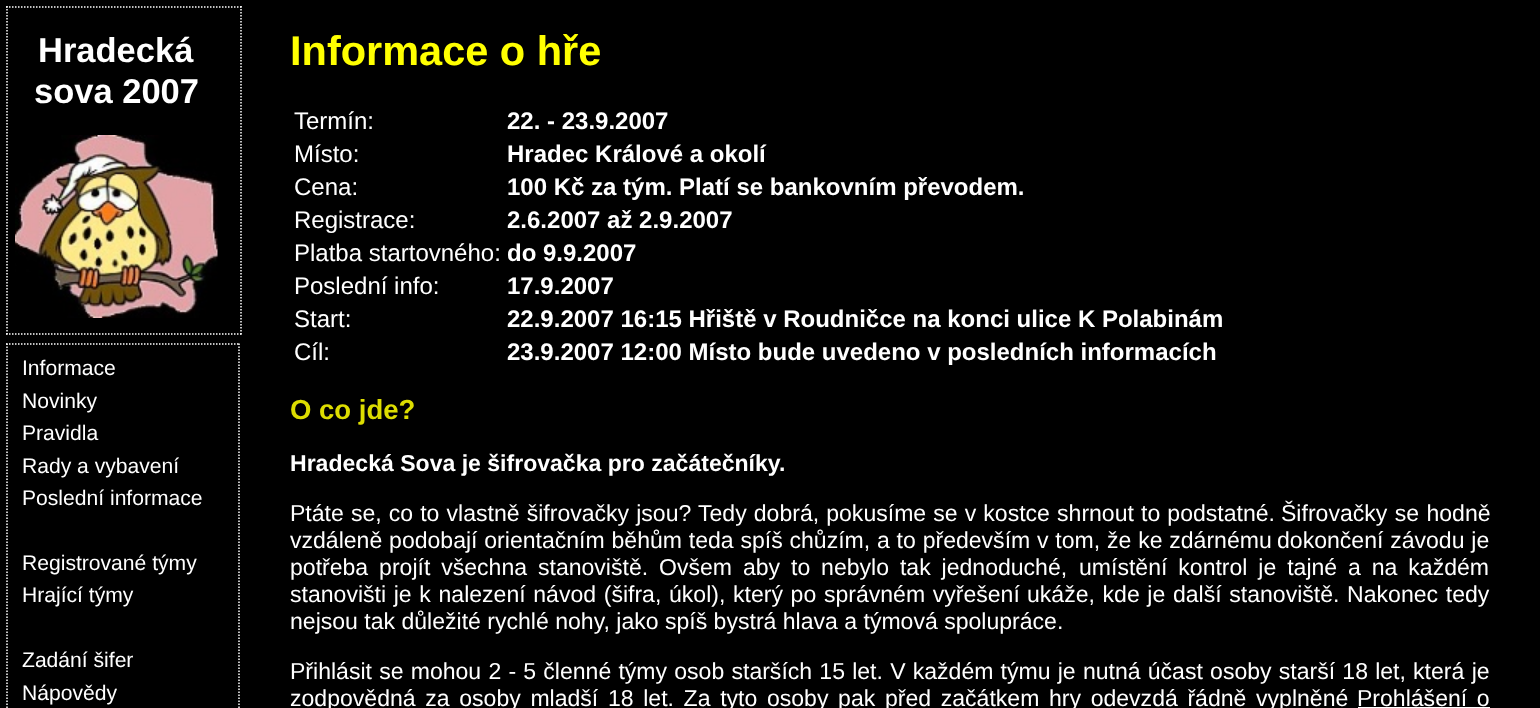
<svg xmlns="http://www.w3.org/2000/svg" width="1540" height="708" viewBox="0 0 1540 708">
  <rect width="100%" height="100%" fill="rgb(0,0,0)"/>
  <path d="M6 7H241.5" fill="none" stroke="rgb(255,255,255)" stroke-width="1.5" stroke-dasharray="1.5 1.5"/>
  <path d="M241 6V334.5" fill="none" stroke="rgb(255,255,255)" stroke-width="1.5" stroke-dasharray="1.5 1.5"/>
  <path d="M6 334H241.5" fill="none" stroke="rgb(255,255,255)" stroke-width="1.5" stroke-dasharray="1.5 1.5"/>
  <path d="M7 6V334.5" fill="none" stroke="rgb(255,255,255)" stroke-width="1.5" stroke-dasharray="1.5 1.5"/>
  <g font-family="Liberation Sans" font-size="34.5" font-weight="bold" fill="rgb(255,255,255)">
    <text x="38" y="62">Hradecká</text>
    <text x="34" y="103">sova 2007</text>
  </g>
  <image x="15" y="135" width="203" height="183" href="pic1.png"/>
  <path d="M6 344H240" fill="none" stroke="rgb(255,255,255)" stroke-width="1.5" stroke-dasharray="1.5 1.5"/>
  <path d="M239 343.5V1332" fill="none" stroke="rgb(255,255,255)" stroke-width="1.5" stroke-dasharray="1.5 1.5"/>
  <path d="M7 343.5V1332" fill="none" stroke="rgb(255,255,255)" stroke-width="1.5" stroke-dasharray="1.5 1.5"/>
  <g font-family="Liberation Sans" font-size="21.1" fill="rgb(255,255,255)">
    <text>
      <tspan x="22" y="375">Informace</tspan>
      <tspan x="22" y="408">Novinky</tspan>
      <tspan x="22" y="440">Pravidla</tspan>
      <tspan x="22" y="473">Rady a vybavení</tspan>
      <tspan x="22" y="505">Poslední informace</tspan>
    </text>
    <text>
      <tspan x="22" y="570">Registrované týmy</tspan>
      <tspan x="22" y="602">Hrající týmy</tspan>
    </text>
    <text>
      <tspan x="22" y="667">Zadání šifer</tspan>
      <tspan x="22" y="700">Nápovědy</tspan>
    </text>
  </g>
  <text x="290" y="65" font-family="Liberation Sans" font-size="41.5" font-weight="bold" fill="rgb(255,255,0)">Informace o hře</text>
  <text x="294" y="129" font-family="Liberation Sans" font-size="24" fill="rgb(255,255,255)">Termín:</text>
  <text x="507" y="129" font-family="Liberation Sans" font-size="24" font-weight="bold" fill="rgb(255,255,255)">22. - 23.9.2007</text>
  <text x="294" y="162" font-family="Liberation Sans" font-size="24" fill="rgb(255,255,255)">Místo:</text>
  <text x="507" y="162" font-family="Liberation Sans" font-size="24" font-weight="bold" fill="rgb(255,255,255)">Hradec Králové a okolí</text>
  <text x="294" y="195" font-family="Liberation Sans" font-size="24" fill="rgb(255,255,255)">Cena:</text>
  <text x="507" y="195" font-family="Liberation Sans" font-size="24" font-weight="bold" fill="rgb(255,255,255)">100 Kč za tým. Platí se bankovním převodem.</text>
  <text x="294" y="228" font-family="Liberation Sans" font-size="24" fill="rgb(255,255,255)">Registrace:</text>
  <text x="507" y="228" font-family="Liberation Sans" font-size="24" font-weight="bold" fill="rgb(255,255,255)">2.6.2007 až 2.9.2007</text>
  <text x="294" y="261" font-family="Liberation Sans" font-size="24" fill="rgb(255,255,255)">Platba startovného:</text>
  <text x="507" y="261" font-family="Liberation Sans" font-size="24" font-weight="bold" fill="rgb(255,255,255)">do 9.9.2007</text>
  <text x="294" y="294" font-family="Liberation Sans" font-size="24" fill="rgb(255,255,255)">Poslední info:</text>
  <text x="507" y="294" font-family="Liberation Sans" font-size="24" font-weight="bold" fill="rgb(255,255,255)">17.9.2007</text>
  <text x="294" y="327" font-family="Liberation Sans" font-size="24" fill="rgb(255,255,255)">Start:</text>
  <text x="507" y="327" font-family="Liberation Sans" font-size="24" font-weight="bold" fill="rgb(255,255,255)">22.9.2007 16:15 Hřiště v Roudničce na konci ulice K Polabinám</text>
  <text x="294" y="360" font-family="Liberation Sans" font-size="24" fill="rgb(255,255,255)">Cíl:</text>
  <text x="507" y="360" font-family="Liberation Sans" font-size="24" font-weight="bold" fill="rgb(255,255,255)">23.9.2007 12:00 Místo bude uvedeno v posledních informacích</text>
  <text x="290" y="419" font-family="Liberation Sans" font-size="27.5" font-weight="bold" fill="rgb(221,221,0)">O co jde?</text>
  <text x="290" y="471" font-family="Liberation Sans" font-size="23.05" font-weight="bold" fill="rgb(255,255,255)">Hradecká Sova je šifrovačka pro začátečníky.</text>
  <g font-family="Liberation Sans" font-size="23.05" fill="rgb(255,255,255)">
    <text x="290" y="521" word-spacing="0.7">Ptáte se, co to vlastně šifrovačky jsou? Tedy dobrá, pokusíme se v kostce shrnout to podstatné.</text>
    <text x="1281" y="521" word-spacing="1">Šifrovačky se hodně</text>
    <text x="290" y="548" word-spacing="0.4">vzdáleně podobají orientačním běhům teda spíš chůzím, a to především v tom, že ke zdárnému</text>
    <text x="1277" y="548" word-spacing="0.4">dokončení závodu je</text>
    <text x="290" y="575" word-spacing="4.5">potřeba projít všechna stanoviště. Ovšem aby to nebylo tak jednoduché,</text>
    <text x="1079" y="575" word-spacing="4.5">umístění kontrol je tajné a na každém</text>
    <text x="290" y="602" word-spacing="1.25">stanovišti je k nalezení návod (šifra, úkol), který po správném vyřešení</text>
    <text x="1027" y="602" word-spacing="1.25">ukáže, kde je další stanoviště. Nakonec tedy</text>
    <text x="290" y="629">nejsou tak důležité rychlé nohy, jako spíš bystrá hlava a týmová spolupráce.</text>
    <text x="290" y="679" word-spacing="0.8">Přihlásit se mohou 2 - 5 členné týmy osob starších 15 let. V každém týmu je nutná účast osoby starší 18 let,</text>
    <text x="1413" y="679" word-spacing="1">která je</text>
    <text x="290" y="706" word-spacing="3.25">zodpovědná za osoby mladší 18 let. Za tyto osoby pak před začátkem hry odevzdá řádně vyplněné</text>
    <text x="1357" y="706" word-spacing="3.25">Prohlášení o</text>
  </g>
  <rect x="1358" y="707" width="132" height="1" fill="rgb(255,255,255)"/>
</svg>
